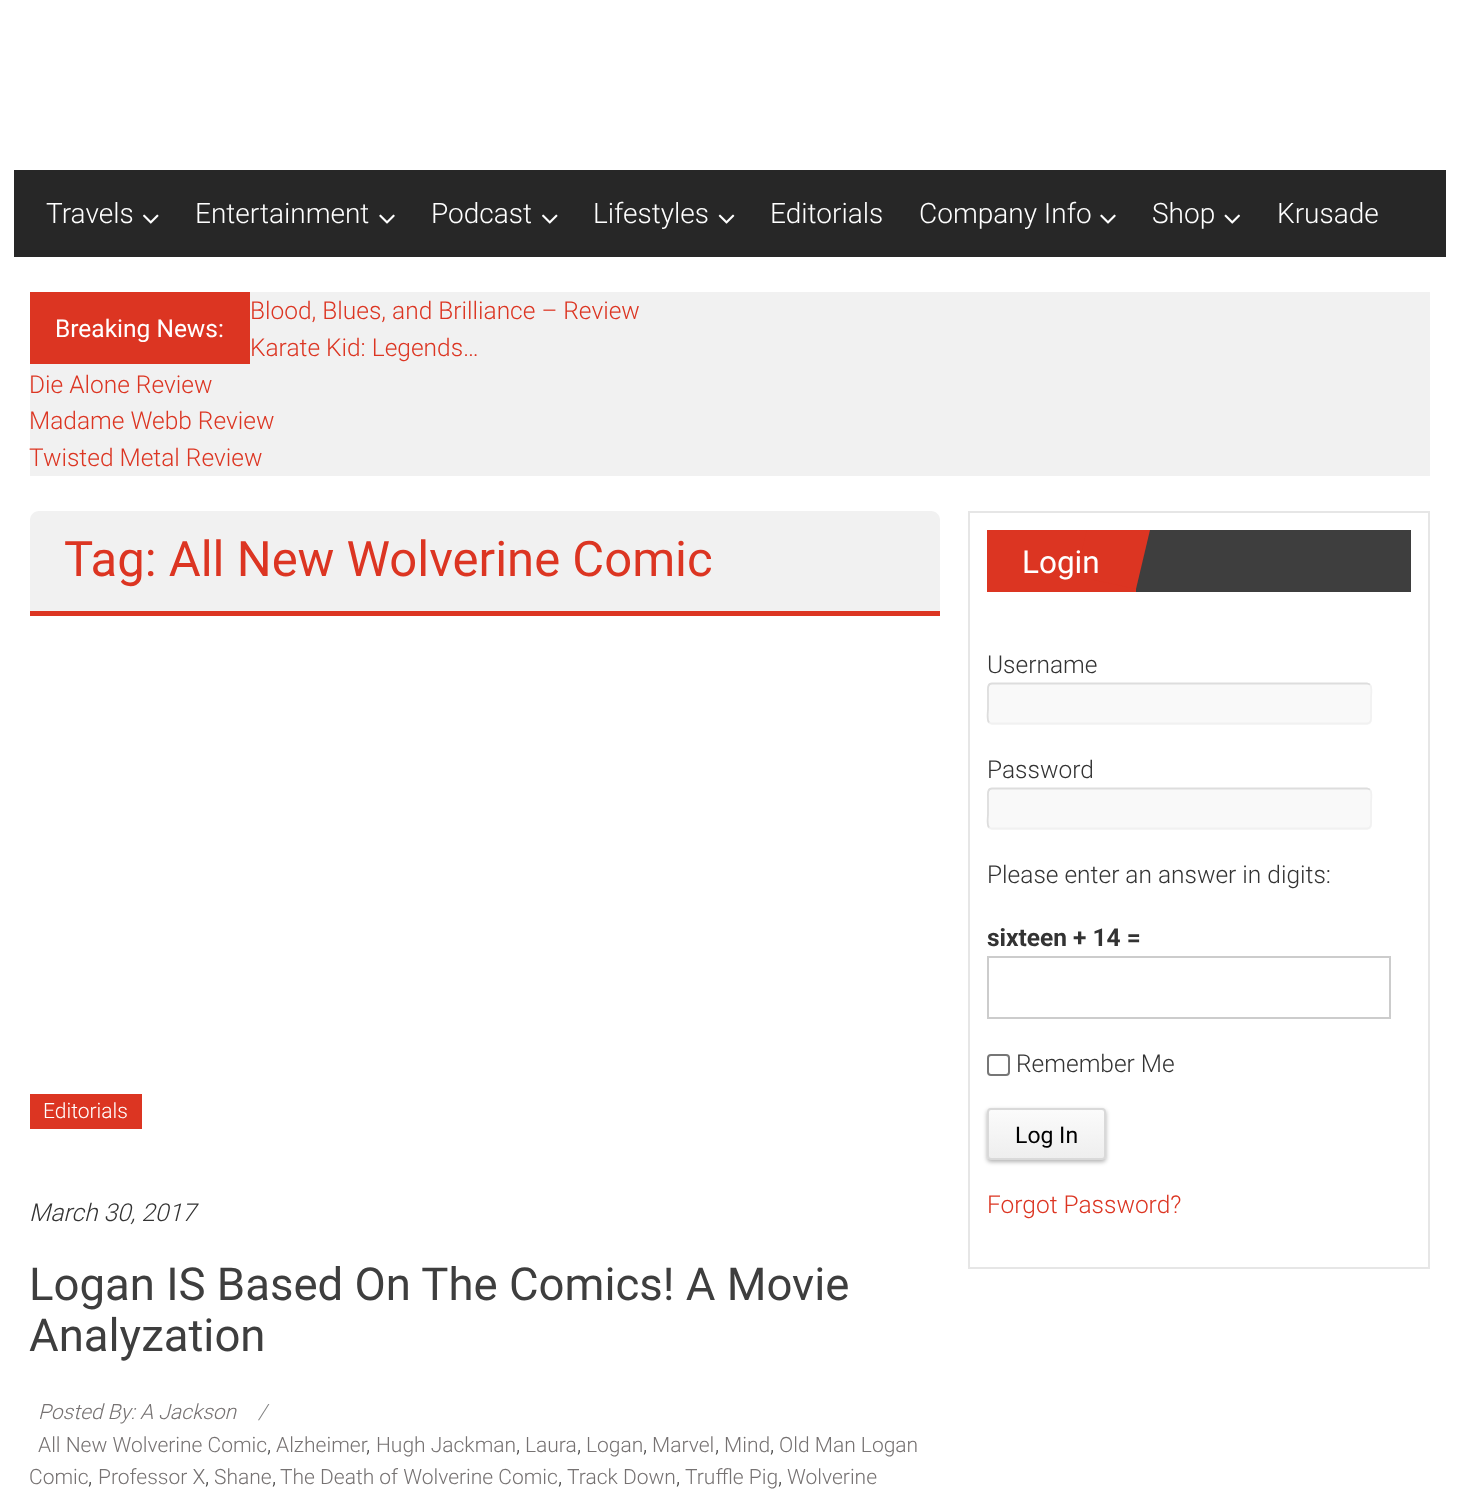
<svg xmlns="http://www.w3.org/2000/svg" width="1458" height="1497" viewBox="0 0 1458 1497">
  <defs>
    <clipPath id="clip1"><rect x="987" y="530" width="424" height="62"/></clipPath>
    <clipPath id="clip2"><rect x="987" y="1108" width="119" height="52" rx="4"/></clipPath>
    <linearGradient id="g1" gradientUnits="userSpaceOnUse" x1="1047" y1="1110" x2="1047" y2="1159"><stop offset="0" stop-color="rgb(251,251,251)"/><stop offset="1" stop-color="rgb(238,238,238)"/></linearGradient>
  </defs>
  <rect width="100%" height="100%" fill="rgb(255,255,255)"/>
  <rect x="14" y="170" width="1432" height="87" fill="rgb(39,39,39)"/>
  <text x="46" y="223" font-family="Roboto" font-size="28" font-weight="300" fill="rgb(255,255,255)">Travels</text>
  <image x="143" y="214" width="16" height="10" href="pic1.png"/>
  <text x="195" y="223" font-family="Roboto" font-size="28" font-weight="300" fill="rgb(255,255,255)">Entertainment</text>
  <image x="379" y="214" width="16" height="10" href="pic2.png"/>
  <text x="431" y="223" font-family="Roboto" font-size="28" font-weight="300" fill="rgb(255,255,255)">Podcast</text>
  <image x="542" y="214" width="16" height="10" href="pic1.png"/>
  <text x="593" y="223" font-family="Roboto" font-size="28" font-weight="300" fill="rgb(255,255,255)">Lifestyles</text>
  <image x="718" y="214" width="17" height="10" href="pic3.png"/>
  <g font-family="Roboto" font-size="28" font-weight="300" fill="rgb(255,255,255)">
    <text x="770" y="223">Editorials</text>
    <text x="919" y="223">Company Info</text>
  </g>
  <image x="1100" y="214" width="16" height="10" href="pic2.png"/>
  <text x="1152" y="223" font-family="Roboto" font-size="28" font-weight="300" fill="rgb(255,255,255)">Shop</text>
  <image x="1224" y="214" width="16" height="10" href="pic4.png"/>
  <text x="1277" y="223" font-family="Roboto" font-size="28" font-weight="300" fill="rgb(255,255,255)">Krusade</text>
  <rect x="30" y="292" width="1400" height="184" fill="rgb(241,241,241)"/>
  <g font-family="Roboto" font-size="24.5" font-weight="300" fill="rgb(220,53,34)">
    <text>
      <tspan x="250" y="319">Blood, Blues, and Brilliance – Review</tspan>
      <tspan x="250" y="356">Karate Kid: Legends…</tspan>
    </text>
    <text>
      <tspan x="29" y="393">Die Alone Review</tspan>
      <tspan x="29" y="429">Madame Webb Review</tspan>
      <tspan x="29" y="466">Twisted Metal Review</tspan>
    </text>
  </g>
  <rect x="30" y="292" width="220" height="72" fill="rgb(220,53,34)"/>
  <text x="55" y="337" font-family="Roboto" font-size="24.5" fill="rgb(255,255,255)">Breaking News:</text>
  <path d="M39 511H931C936 511 940 515 940 520V616H30V520C30 515 34 511 39 511Z" fill="rgb(241,241,241)"/>
  <rect x="30" y="611" width="910" height="5" fill="rgb(220,53,34)"/>
  <text x="64" y="576" font-family="Roboto" font-size="49" fill="rgb(220,53,34)">Tag: All New Wolverine Comic</text>
  <rect x="30" y="1094" width="112" height="35" fill="rgb(220,53,34)"/>
  <text x="43" y="1118" font-family="Roboto" font-size="21" font-weight="300" fill="rgb(255,255,255)">Editorials</text>
  <text x="29" y="1221" font-family="Roboto" font-size="24.5" font-weight="300" font-style="italic" fill="rgb(51,51,51)">March 30, 2017</text>
  <g font-family="Roboto" font-size="45.5" fill="rgb(62,62,62)">
    <text>
      <tspan x="29" y="1300">Logan IS Based On The Comics! A Movie</tspan>
      <tspan x="29" y="1351">Analyzation</tspan>
    </text>
  </g>
  <text x="38" y="1419" font-family="Roboto" font-size="21" font-weight="300" font-style="italic" fill="rgb(118,114,114)">Posted By: A Jackson</text>
  <text x="258" y="1419" font-family="Roboto" font-size="21" font-weight="300" font-style="italic" fill="rgb(128,128,128)">/</text>
  <text x="38" y="1452" font-family="Roboto" font-size="21" font-weight="300" fill="rgb(118,114,114)">All New Wolverine Comic</text>
  <text x="267" y="1452" font-family="Roboto" font-size="21" font-weight="300" fill="rgb(51,51,51)">,</text>
  <text x="276" y="1452" font-family="Roboto" font-size="21" font-weight="300" fill="rgb(118,114,114)">Alzheimer</text>
  <text x="366" y="1452" font-family="Roboto" font-size="21" font-weight="300" fill="rgb(51,51,51)">,</text>
  <text x="376" y="1452" font-family="Roboto" font-size="21" font-weight="300" fill="rgb(118,114,114)">Hugh Jackman</text>
  <text x="516" y="1452" font-family="Roboto" font-size="21" font-weight="300" fill="rgb(51,51,51)">,</text>
  <text x="525" y="1452" font-family="Roboto" font-size="21" font-weight="300" fill="rgb(118,114,114)">Laura</text>
  <text x="577" y="1452" font-family="Roboto" font-size="21" font-weight="300" fill="rgb(51,51,51)">,</text>
  <text x="586" y="1452" font-family="Roboto" font-size="21" font-weight="300" fill="rgb(118,114,114)">Logan</text>
  <text x="643" y="1452" font-family="Roboto" font-size="21" font-weight="300" fill="rgb(51,51,51)">,</text>
  <text x="652" y="1452" font-family="Roboto" font-size="21" font-weight="300" fill="rgb(118,114,114)">Marvel</text>
  <text x="715" y="1452" font-family="Roboto" font-size="21" font-weight="300" fill="rgb(51,51,51)">,</text>
  <text x="724" y="1452" font-family="Roboto" font-size="21" font-weight="300" fill="rgb(118,114,114)">Mind</text>
  <text x="770" y="1452" font-family="Roboto" font-size="21" font-weight="300" fill="rgb(51,51,51)">,</text>
  <g font-family="Roboto" font-size="21" font-weight="300" fill="rgb(118,114,114)">
    <text x="779" y="1452">Old Man Logan</text>
    <text x="29" y="1484">Comic</text>
  </g>
  <text x="88" y="1484" font-family="Roboto" font-size="21" font-weight="300" fill="rgb(51,51,51)">,</text>
  <text x="98" y="1484" font-family="Roboto" font-size="21" font-weight="300" fill="rgb(118,114,114)">Professor X</text>
  <text x="205" y="1484" font-family="Roboto" font-size="21" font-weight="300" fill="rgb(51,51,51)">,</text>
  <text x="214" y="1484" font-family="Roboto" font-size="21" font-weight="300" fill="rgb(118,114,114)">Shane</text>
  <text x="272" y="1484" font-family="Roboto" font-size="21" font-weight="300" fill="rgb(51,51,51)">,</text>
  <text x="280" y="1484" font-family="Roboto" font-size="21" font-weight="300" fill="rgb(118,114,114)">The Death of Wolverine Comic</text>
  <text x="558" y="1484" font-family="Roboto" font-size="21" font-weight="300" fill="rgb(51,51,51)">,</text>
  <text x="567" y="1484" font-family="Roboto" font-size="21" font-weight="300" fill="rgb(118,114,114)">Track Down</text>
  <text x="676" y="1484" font-family="Roboto" font-size="21" font-weight="300" fill="rgb(51,51,51)">,</text>
  <text x="685" y="1484" font-family="Roboto" font-size="21" font-weight="300" fill="rgb(118,114,114)">Truffle Pig</text>
  <text x="778" y="1484" font-family="Roboto" font-size="21" font-weight="300" fill="rgb(51,51,51)">,</text>
  <text x="787" y="1484" font-family="Roboto" font-size="21" font-weight="300" fill="rgb(118,114,114)">Wolverine</text>
  <rect x="969" y="512" width="460" height="756" fill="none" stroke="rgb(230,230,230)" stroke-width="2"/>
  <rect x="1136" y="530" width="275" height="62" fill="rgb(62,62,62)"/>
  <rect x="987" y="530" width="149" height="62" fill="rgb(220,53,34)"/>
  <g clip-path="url(#clip1)">
    <path d="M1150 530L1136 589L1076 576L1090 516Z" fill="rgb(220,53,34)"/>
  </g>
  <text x="1022" y="573" font-family="Roboto" font-size="31.5" fill="rgb(255,255,255)">Login</text>
  <text x="987" y="673" font-family="Roboto" font-size="24.5" font-weight="300" fill="rgb(51,51,51)">Username</text>
  <rect x="987" y="683" width="385" height="42" rx="5" fill="rgb(249,249,249)"/>
  <path d="M1370 684.5C1372.5 687.5 1371 695 1371 698V714C1371 717.5 1372 723.5 1367 723.5H992L989 722.5" fill="none" stroke="rgb(241,241,241)" stroke-width="1.8"/>
  <path d="M989 722.5C986.5 719.5 988 712 988 709V693C988 689.5 987 683.5 992 683.5H1367L1370 684.5" fill="none" stroke="rgb(221,221,221)" stroke-width="1.8"/>
  <text x="987" y="778" font-family="Roboto" font-size="24.5" font-weight="300" fill="rgb(51,51,51)">Password</text>
  <rect x="987" y="788" width="385" height="42" rx="5" fill="rgb(249,249,249)"/>
  <path d="M1370 789.5C1372.5 792.5 1371 800 1371 803V819C1371 822.5 1372 828.5 1367 828.5H992L989 827.5" fill="none" stroke="rgb(241,241,241)" stroke-width="1.8"/>
  <path d="M989 827.5C986.5 824.5 988 817 988 814V798C988 794.5 987 788.5 992 788.5H1367L1370 789.5" fill="none" stroke="rgb(221,221,221)" stroke-width="1.8"/>
  <text x="987" y="883" font-family="Roboto" font-size="24.5" font-weight="300" fill="rgb(51,51,51)">Please enter an answer in digits:</text>
  <text x="987" y="946" font-family="Roboto" font-size="24.5" font-weight="bold" fill="rgb(51,51,51)">sixteen + 14 =</text>
  <rect x="988" y="957" width="402" height="61" fill="none" stroke="rgb(204,204,204)" stroke-width="2"/>
  <rect x="988" y="1055" width="21" height="20" rx="3" fill="none" stroke="rgb(118,118,118)" stroke-width="2"/>
  <text x="1016" y="1072" font-family="Roboto" font-size="24.5" font-weight="300" fill="rgb(51,51,51)">Remember Me</text>
  <rect x="987" y="1110" width="119" height="52" rx="4" fill="rgba(0,0,0,0.3)" filter="blur(2px)"/>
  <g clip-path="url(#clip2)">
    <rect x="987" y="1110" width="119" height="49" fill="url(#g1)"/>
  </g>
  <rect x="988" y="1109" width="117" height="50" rx="3" fill="none" stroke="rgb(217,217,217)" stroke-width="2"/>
  <text x="1015" y="1143" font-family="Roboto" font-size="23" fill="rgb(0,0,0)">Log In</text>
  <text x="987" y="1213" font-family="Roboto" font-size="24.5" font-weight="300" fill="rgb(220,53,34)">Forgot Password?</text>
</svg>
